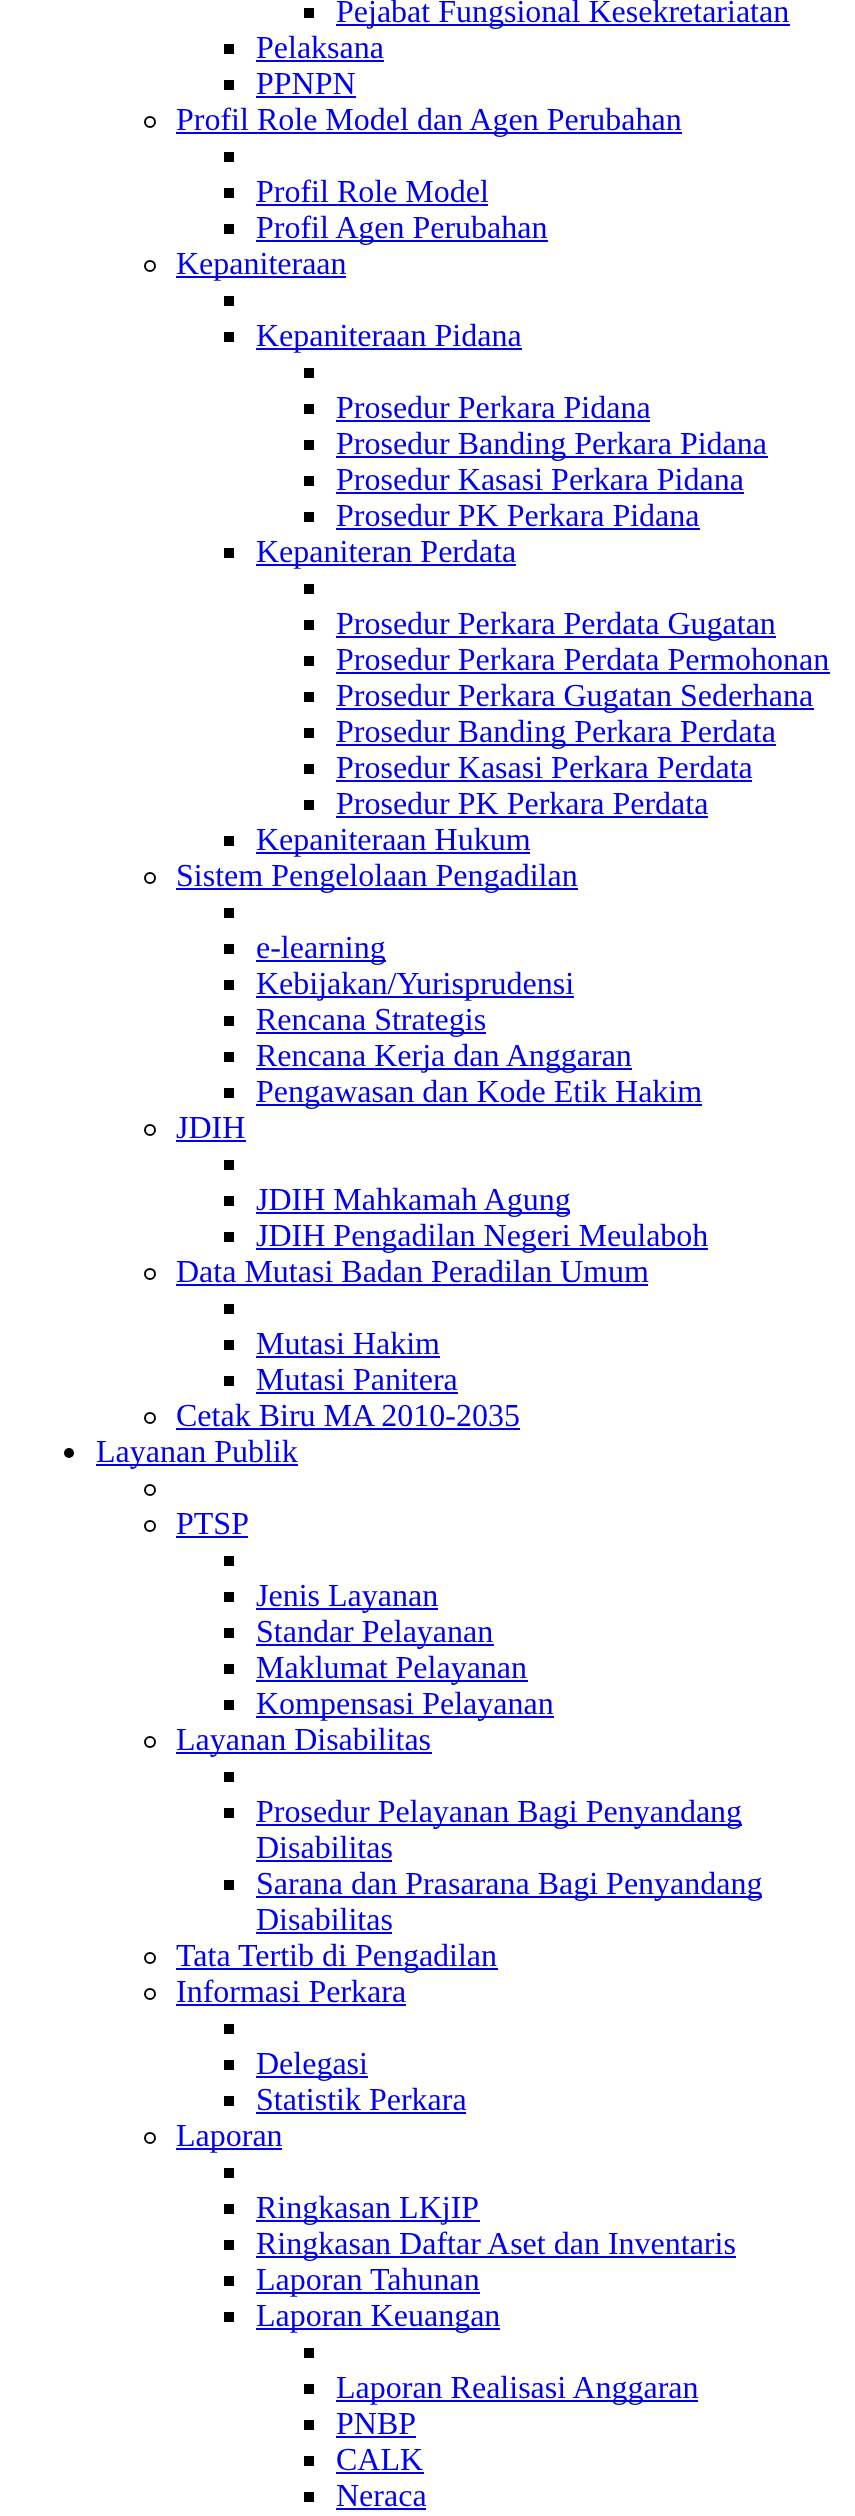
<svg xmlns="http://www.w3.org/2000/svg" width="855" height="2516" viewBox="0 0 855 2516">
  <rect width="100%" height="100%" fill="rgb(255,255,255)"/>
  <rect x="304" y="8" width="10" height="10" fill="rgb(0,0,0)"/>
  <rect x="336" y="24" width="454" height="2" fill="rgb(0,0,238)"/>
  <text x="336" y="22" font-family="Liberation Serif" font-size="32" fill="rgb(0,0,238)">Pejabat Fungsional Kesekretariatan</text>
  <rect x="224" y="44" width="10" height="10" fill="rgb(0,0,0)"/>
  <text x="256" y="58" font-family="Liberation Serif" font-size="32" fill="rgb(0,0,238)">Pelaksana</text>
  <rect x="256" y="60" width="128" height="2" fill="rgb(0,0,238)"/>
  <rect x="224" y="80" width="10" height="10" fill="rgb(0,0,0)"/>
  <text x="256" y="94" font-family="Liberation Serif" font-size="32" fill="rgb(0,0,238)">PPNPN</text>
  <rect x="256" y="96" width="100" height="2" fill="rgb(0,0,238)"/>
  <circle cx="150" cy="122" r="5" fill="none" stroke="rgb(0,0,0)" stroke-width="2"/>
  <rect x="176" y="132" width="506" height="2" fill="rgb(0,0,238)"/>
  <text x="176" y="130" font-family="Liberation Serif" font-size="32" fill="rgb(0,0,238)">Profil Role Model dan Agen Perubahan</text>
  <rect x="224" y="152" width="10" height="10" fill="rgb(0,0,0)"/>
  <rect x="224" y="188" width="10" height="10" fill="rgb(0,0,0)"/>
  <text x="256" y="202" font-family="Liberation Serif" font-size="32" fill="rgb(0,0,238)">Profil Role Model</text>
  <rect x="256" y="204" width="232" height="2" fill="rgb(0,0,238)"/>
  <rect x="224" y="224" width="10" height="10" fill="rgb(0,0,0)"/>
  <rect x="256" y="240" width="292" height="2" fill="rgb(0,0,238)"/>
  <text x="256" y="238" font-family="Liberation Serif" font-size="32" fill="rgb(0,0,238)">Profil Agen Perubahan</text>
  <circle cx="150" cy="266" r="5" fill="none" stroke="rgb(0,0,0)" stroke-width="2"/>
  <rect x="176" y="276" width="170" height="2" fill="rgb(0,0,238)"/>
  <text x="176" y="274" font-family="Liberation Serif" font-size="32" fill="rgb(0,0,238)">Kepaniteraan</text>
  <rect x="224" y="296" width="10" height="10" fill="rgb(0,0,0)"/>
  <rect x="224" y="332" width="10" height="10" fill="rgb(0,0,0)"/>
  <rect x="256" y="348" width="266" height="2" fill="rgb(0,0,238)"/>
  <text x="256" y="346" font-family="Liberation Serif" font-size="32" fill="rgb(0,0,238)">Kepaniteraan Pidana</text>
  <rect x="304" y="368" width="10" height="10" fill="rgb(0,0,0)"/>
  <rect x="304" y="404" width="10" height="10" fill="rgb(0,0,0)"/>
  <text x="336" y="418" font-family="Liberation Serif" font-size="32" fill="rgb(0,0,238)">Prosedur Perkara Pidana</text>
  <rect x="336" y="420" width="314" height="2" fill="rgb(0,0,238)"/>
  <rect x="304" y="440" width="10" height="10" fill="rgb(0,0,0)"/>
  <rect x="336" y="456" width="432" height="2" fill="rgb(0,0,238)"/>
  <text x="336" y="454" font-family="Liberation Serif" font-size="32" fill="rgb(0,0,238)">Prosedur Banding Perkara Pidana</text>
  <rect x="304" y="476" width="10" height="10" fill="rgb(0,0,0)"/>
  <text x="336" y="490" font-family="Liberation Serif" font-size="32" fill="rgb(0,0,238)">Prosedur Kasasi Perkara Pidana</text>
  <rect x="336" y="492" width="408" height="2" fill="rgb(0,0,238)"/>
  <rect x="304" y="512" width="10" height="10" fill="rgb(0,0,0)"/>
  <text x="336" y="526" font-family="Liberation Serif" font-size="32" fill="rgb(0,0,238)">Prosedur PK Perkara Pidana</text>
  <rect x="336" y="528" width="364" height="2" fill="rgb(0,0,238)"/>
  <rect x="224" y="548" width="10" height="10" fill="rgb(0,0,0)"/>
  <rect x="256" y="564" width="260" height="2" fill="rgb(0,0,238)"/>
  <text x="256" y="562" font-family="Liberation Serif" font-size="32" fill="rgb(0,0,238)">Kepaniteran Perdata</text>
  <rect x="304" y="584" width="10" height="10" fill="rgb(0,0,0)"/>
  <rect x="304" y="620" width="10" height="10" fill="rgb(0,0,0)"/>
  <rect x="336" y="636" width="440" height="2" fill="rgb(0,0,238)"/>
  <text x="336" y="634" font-family="Liberation Serif" font-size="32" fill="rgb(0,0,238)">Prosedur Perkara Perdata Gugatan</text>
  <rect x="304" y="656" width="10" height="10" fill="rgb(0,0,0)"/>
  <text x="336" y="670" font-family="Liberation Serif" font-size="32" fill="rgb(0,0,238)">Prosedur Perkara Perdata Permohonan</text>
  <rect x="336" y="672" width="494" height="2" fill="rgb(0,0,238)"/>
  <rect x="304" y="692" width="10" height="10" fill="rgb(0,0,0)"/>
  <rect x="336" y="708" width="478" height="2" fill="rgb(0,0,238)"/>
  <text x="336" y="706" font-family="Liberation Serif" font-size="32" fill="rgb(0,0,238)">Prosedur Perkara Gugatan Sederhana</text>
  <rect x="304" y="728" width="10" height="10" fill="rgb(0,0,0)"/>
  <rect x="336" y="744" width="440" height="2" fill="rgb(0,0,238)"/>
  <text x="336" y="742" font-family="Liberation Serif" font-size="32" fill="rgb(0,0,238)">Prosedur Banding Perkara Perdata</text>
  <rect x="304" y="764" width="10" height="10" fill="rgb(0,0,0)"/>
  <text x="336" y="778" font-family="Liberation Serif" font-size="32" fill="rgb(0,0,238)">Prosedur Kasasi Perkara Perdata</text>
  <rect x="336" y="780" width="416" height="2" fill="rgb(0,0,238)"/>
  <rect x="304" y="800" width="10" height="10" fill="rgb(0,0,0)"/>
  <text x="336" y="814" font-family="Liberation Serif" font-size="32" fill="rgb(0,0,238)">Prosedur PK Perkara Perdata</text>
  <rect x="336" y="816" width="372" height="2" fill="rgb(0,0,238)"/>
  <rect x="224" y="836" width="10" height="10" fill="rgb(0,0,0)"/>
  <rect x="256" y="852" width="274" height="2" fill="rgb(0,0,238)"/>
  <text x="256" y="850" font-family="Liberation Serif" font-size="32" fill="rgb(0,0,238)">Kepaniteraan Hukum</text>
  <circle cx="150" cy="878" r="5" fill="none" stroke="rgb(0,0,0)" stroke-width="2"/>
  <rect x="176" y="888" width="402" height="2" fill="rgb(0,0,238)"/>
  <text x="176" y="886" font-family="Liberation Serif" font-size="32" fill="rgb(0,0,238)">Sistem Pengelolaan Pengadilan</text>
  <rect x="224" y="908" width="10" height="10" fill="rgb(0,0,0)"/>
  <rect x="224" y="944" width="10" height="10" fill="rgb(0,0,0)"/>
  <rect x="256" y="960" width="130" height="2" fill="rgb(0,0,238)"/>
  <text x="256" y="958" font-family="Liberation Serif" font-size="32" fill="rgb(0,0,238)">e-learning</text>
  <rect x="224" y="980" width="10" height="10" fill="rgb(0,0,0)"/>
  <rect x="256" y="996" width="318" height="2" fill="rgb(0,0,238)"/>
  <text x="256" y="994" font-family="Liberation Serif" font-size="32" fill="rgb(0,0,238)">Kebijakan/Yurisprudensi</text>
  <rect x="224" y="1016" width="10" height="10" fill="rgb(0,0,0)"/>
  <rect x="256" y="1032" width="230" height="2" fill="rgb(0,0,238)"/>
  <text x="256" y="1030" font-family="Liberation Serif" font-size="32" fill="rgb(0,0,238)">Rencana Strategis</text>
  <rect x="224" y="1052" width="10" height="10" fill="rgb(0,0,0)"/>
  <rect x="256" y="1068" width="376" height="2" fill="rgb(0,0,238)"/>
  <text x="256" y="1066" font-family="Liberation Serif" font-size="32" fill="rgb(0,0,238)">Rencana Kerja dan Anggaran</text>
  <rect x="224" y="1088" width="10" height="10" fill="rgb(0,0,0)"/>
  <rect x="256" y="1104" width="446" height="2" fill="rgb(0,0,238)"/>
  <text x="256" y="1102" font-family="Liberation Serif" font-size="32" fill="rgb(0,0,238)">Pengawasan dan Kode Etik Hakim</text>
  <circle cx="150" cy="1130" r="5" fill="none" stroke="rgb(0,0,0)" stroke-width="2"/>
  <text x="176" y="1138" font-family="Liberation Serif" font-size="32" fill="rgb(0,0,238)">JDIH</text>
  <rect x="176" y="1140" width="70" height="2" fill="rgb(0,0,238)"/>
  <rect x="224" y="1160" width="10" height="10" fill="rgb(0,0,0)"/>
  <rect x="224" y="1196" width="10" height="10" fill="rgb(0,0,0)"/>
  <rect x="256" y="1212" width="314" height="2" fill="rgb(0,0,238)"/>
  <text x="256" y="1210" font-family="Liberation Serif" font-size="32" fill="rgb(0,0,238)">JDIH Mahkamah Agung</text>
  <rect x="224" y="1232" width="10" height="10" fill="rgb(0,0,0)"/>
  <rect x="256" y="1248" width="452" height="2" fill="rgb(0,0,238)"/>
  <text x="256" y="1246" font-family="Liberation Serif" font-size="32" fill="rgb(0,0,238)">JDIH Pengadilan Negeri Meulaboh</text>
  <circle cx="150" cy="1274" r="5" fill="none" stroke="rgb(0,0,0)" stroke-width="2"/>
  <text x="176" y="1282" font-family="Liberation Serif" font-size="32" fill="rgb(0,0,238)">Data Mutasi Badan Peradilan Umum</text>
  <rect x="176" y="1284" width="472" height="2" fill="rgb(0,0,238)"/>
  <rect x="224" y="1304" width="10" height="10" fill="rgb(0,0,0)"/>
  <rect x="224" y="1340" width="10" height="10" fill="rgb(0,0,0)"/>
  <text x="256" y="1354" font-family="Liberation Serif" font-size="32" fill="rgb(0,0,238)">Mutasi Hakim</text>
  <rect x="256" y="1356" width="184" height="2" fill="rgb(0,0,238)"/>
  <rect x="224" y="1376" width="10" height="10" fill="rgb(0,0,0)"/>
  <text x="256" y="1390" font-family="Liberation Serif" font-size="32" fill="rgb(0,0,238)">Mutasi Panitera</text>
  <rect x="256" y="1392" width="202" height="2" fill="rgb(0,0,238)"/>
  <circle cx="150" cy="1418" r="5" fill="none" stroke="rgb(0,0,0)" stroke-width="2"/>
  <text x="176" y="1426" font-family="Liberation Serif" font-size="32" fill="rgb(0,0,238)">Cetak Biru MA 2010-2035</text>
  <rect x="176" y="1428" width="344" height="2" fill="rgb(0,0,238)"/>
  <circle cx="69" cy="1453" r="5" fill="rgb(0,0,0)"/>
  <rect x="96" y="1464" width="202" height="2" fill="rgb(0,0,238)"/>
  <text x="96" y="1462" font-family="Liberation Serif" font-size="32" fill="rgb(0,0,238)">Layanan Publik</text>
  <circle cx="150" cy="1490" r="5" fill="none" stroke="rgb(0,0,0)" stroke-width="2"/>
  <circle cx="150" cy="1526" r="5" fill="none" stroke="rgb(0,0,0)" stroke-width="2"/>
  <text x="176" y="1534" font-family="Liberation Serif" font-size="32" fill="rgb(0,0,238)">PTSP</text>
  <rect x="176" y="1536" width="72" height="2" fill="rgb(0,0,238)"/>
  <rect x="224" y="1556" width="10" height="10" fill="rgb(0,0,0)"/>
  <rect x="224" y="1592" width="10" height="10" fill="rgb(0,0,0)"/>
  <rect x="256" y="1608" width="182" height="2" fill="rgb(0,0,238)"/>
  <text x="256" y="1606" font-family="Liberation Serif" font-size="32" fill="rgb(0,0,238)">Jenis Layanan</text>
  <rect x="224" y="1628" width="10" height="10" fill="rgb(0,0,0)"/>
  <rect x="256" y="1644" width="238" height="2" fill="rgb(0,0,238)"/>
  <text x="256" y="1642" font-family="Liberation Serif" font-size="32" fill="rgb(0,0,238)">Standar Pelayanan</text>
  <rect x="224" y="1664" width="10" height="10" fill="rgb(0,0,0)"/>
  <rect x="256" y="1680" width="272" height="2" fill="rgb(0,0,238)"/>
  <text x="256" y="1678" font-family="Liberation Serif" font-size="32" fill="rgb(0,0,238)">Maklumat Pelayanan</text>
  <rect x="224" y="1700" width="10" height="10" fill="rgb(0,0,0)"/>
  <rect x="256" y="1716" width="298" height="2" fill="rgb(0,0,238)"/>
  <text x="256" y="1714" font-family="Liberation Serif" font-size="32" fill="rgb(0,0,238)">Kompensasi Pelayanan</text>
  <circle cx="150" cy="1742" r="5" fill="none" stroke="rgb(0,0,0)" stroke-width="2"/>
  <rect x="176" y="1752" width="256" height="2" fill="rgb(0,0,238)"/>
  <text x="176" y="1750" font-family="Liberation Serif" font-size="32" fill="rgb(0,0,238)">Layanan Disabilitas</text>
  <rect x="224" y="1772" width="10" height="10" fill="rgb(0,0,0)"/>
  <rect x="224" y="1808" width="10" height="10" fill="rgb(0,0,0)"/>
  <rect x="256" y="1824" width="486" height="2" fill="rgb(0,0,238)"/>
  <g font-family="Liberation Serif" font-size="32" fill="rgb(0,0,238)">
    <text>
      <tspan x="256" y="1822">Prosedur Pelayanan Bagi Penyandang</tspan>
      <tspan x="256" y="1858">Disabilitas</tspan>
    </text>
  </g>
  <rect x="256" y="1860" width="136" height="2" fill="rgb(0,0,238)"/>
  <rect x="224" y="1880" width="10" height="10" fill="rgb(0,0,0)"/>
  <rect x="256" y="1896" width="506" height="2" fill="rgb(0,0,238)"/>
  <g font-family="Liberation Serif" font-size="32" fill="rgb(0,0,238)">
    <text>
      <tspan x="256" y="1894">Sarana dan Prasarana Bagi Penyandang</tspan>
      <tspan x="256" y="1930">Disabilitas</tspan>
    </text>
  </g>
  <rect x="256" y="1932" width="136" height="2" fill="rgb(0,0,238)"/>
  <circle cx="150" cy="1958" r="5" fill="none" stroke="rgb(0,0,0)" stroke-width="2"/>
  <rect x="176" y="1968" width="322" height="2" fill="rgb(0,0,238)"/>
  <text x="176" y="1966" font-family="Liberation Serif" font-size="32" fill="rgb(0,0,238)">Tata Tertib di Pengadilan</text>
  <circle cx="150" cy="1994" r="5" fill="none" stroke="rgb(0,0,0)" stroke-width="2"/>
  <text x="176" y="2002" font-family="Liberation Serif" font-size="32" fill="rgb(0,0,238)">Informasi Perkara</text>
  <rect x="176" y="2004" width="230" height="2" fill="rgb(0,0,238)"/>
  <rect x="224" y="2024" width="10" height="10" fill="rgb(0,0,0)"/>
  <rect x="224" y="2060" width="10" height="10" fill="rgb(0,0,0)"/>
  <rect x="256" y="2076" width="112" height="2" fill="rgb(0,0,238)"/>
  <text x="256" y="2074" font-family="Liberation Serif" font-size="32" fill="rgb(0,0,238)">Delegasi</text>
  <rect x="224" y="2096" width="10" height="10" fill="rgb(0,0,0)"/>
  <text x="256" y="2110" font-family="Liberation Serif" font-size="32" fill="rgb(0,0,238)">Statistik Perkara</text>
  <rect x="256" y="2112" width="210" height="2" fill="rgb(0,0,238)"/>
  <circle cx="150" cy="2138" r="5" fill="none" stroke="rgb(0,0,0)" stroke-width="2"/>
  <rect x="176" y="2148" width="106" height="2" fill="rgb(0,0,238)"/>
  <text x="176" y="2146" font-family="Liberation Serif" font-size="32" fill="rgb(0,0,238)">Laporan</text>
  <rect x="224" y="2168" width="10" height="10" fill="rgb(0,0,0)"/>
  <rect x="224" y="2204" width="10" height="10" fill="rgb(0,0,0)"/>
  <rect x="256" y="2220" width="224" height="2" fill="rgb(0,0,238)"/>
  <text x="256" y="2218" font-family="Liberation Serif" font-size="32" fill="rgb(0,0,238)">Ringkasan LKjIP</text>
  <rect x="224" y="2240" width="10" height="10" fill="rgb(0,0,0)"/>
  <rect x="256" y="2256" width="480" height="2" fill="rgb(0,0,238)"/>
  <text x="256" y="2254" font-family="Liberation Serif" font-size="32" fill="rgb(0,0,238)">Ringkasan Daftar Aset dan Inventaris</text>
  <rect x="224" y="2276" width="10" height="10" fill="rgb(0,0,0)"/>
  <rect x="256" y="2292" width="224" height="2" fill="rgb(0,0,238)"/>
  <text x="256" y="2290" font-family="Liberation Serif" font-size="32" fill="rgb(0,0,238)">Laporan Tahunan</text>
  <rect x="224" y="2312" width="10" height="10" fill="rgb(0,0,0)"/>
  <rect x="256" y="2328" width="244" height="2" fill="rgb(0,0,238)"/>
  <text x="256" y="2326" font-family="Liberation Serif" font-size="32" fill="rgb(0,0,238)">Laporan Keuangan</text>
  <rect x="304" y="2348" width="10" height="10" fill="rgb(0,0,0)"/>
  <rect x="304" y="2384" width="10" height="10" fill="rgb(0,0,0)"/>
  <rect x="336" y="2400" width="362" height="2" fill="rgb(0,0,238)"/>
  <text x="336" y="2398" font-family="Liberation Serif" font-size="32" fill="rgb(0,0,238)">Laporan Realisasi Anggaran</text>
  <rect x="304" y="2420" width="10" height="10" fill="rgb(0,0,0)"/>
  <text x="336" y="2434" font-family="Liberation Serif" font-size="32" fill="rgb(0,0,238)">PNBP</text>
  <rect x="336" y="2436" width="80" height="2" fill="rgb(0,0,238)"/>
  <rect x="304" y="2456" width="10" height="10" fill="rgb(0,0,0)"/>
  <text x="336" y="2470" font-family="Liberation Serif" font-size="32" fill="rgb(0,0,238)">CALK</text>
  <rect x="336" y="2472" width="88" height="2" fill="rgb(0,0,238)"/>
  <rect x="304" y="2492" width="10" height="10" fill="rgb(0,0,0)"/>
  <text x="336" y="2506" font-family="Liberation Serif" font-size="32" fill="rgb(0,0,238)">Neraca</text>
  <rect x="336" y="2508" width="90" height="2" fill="rgb(0,0,238)"/>
</svg>
